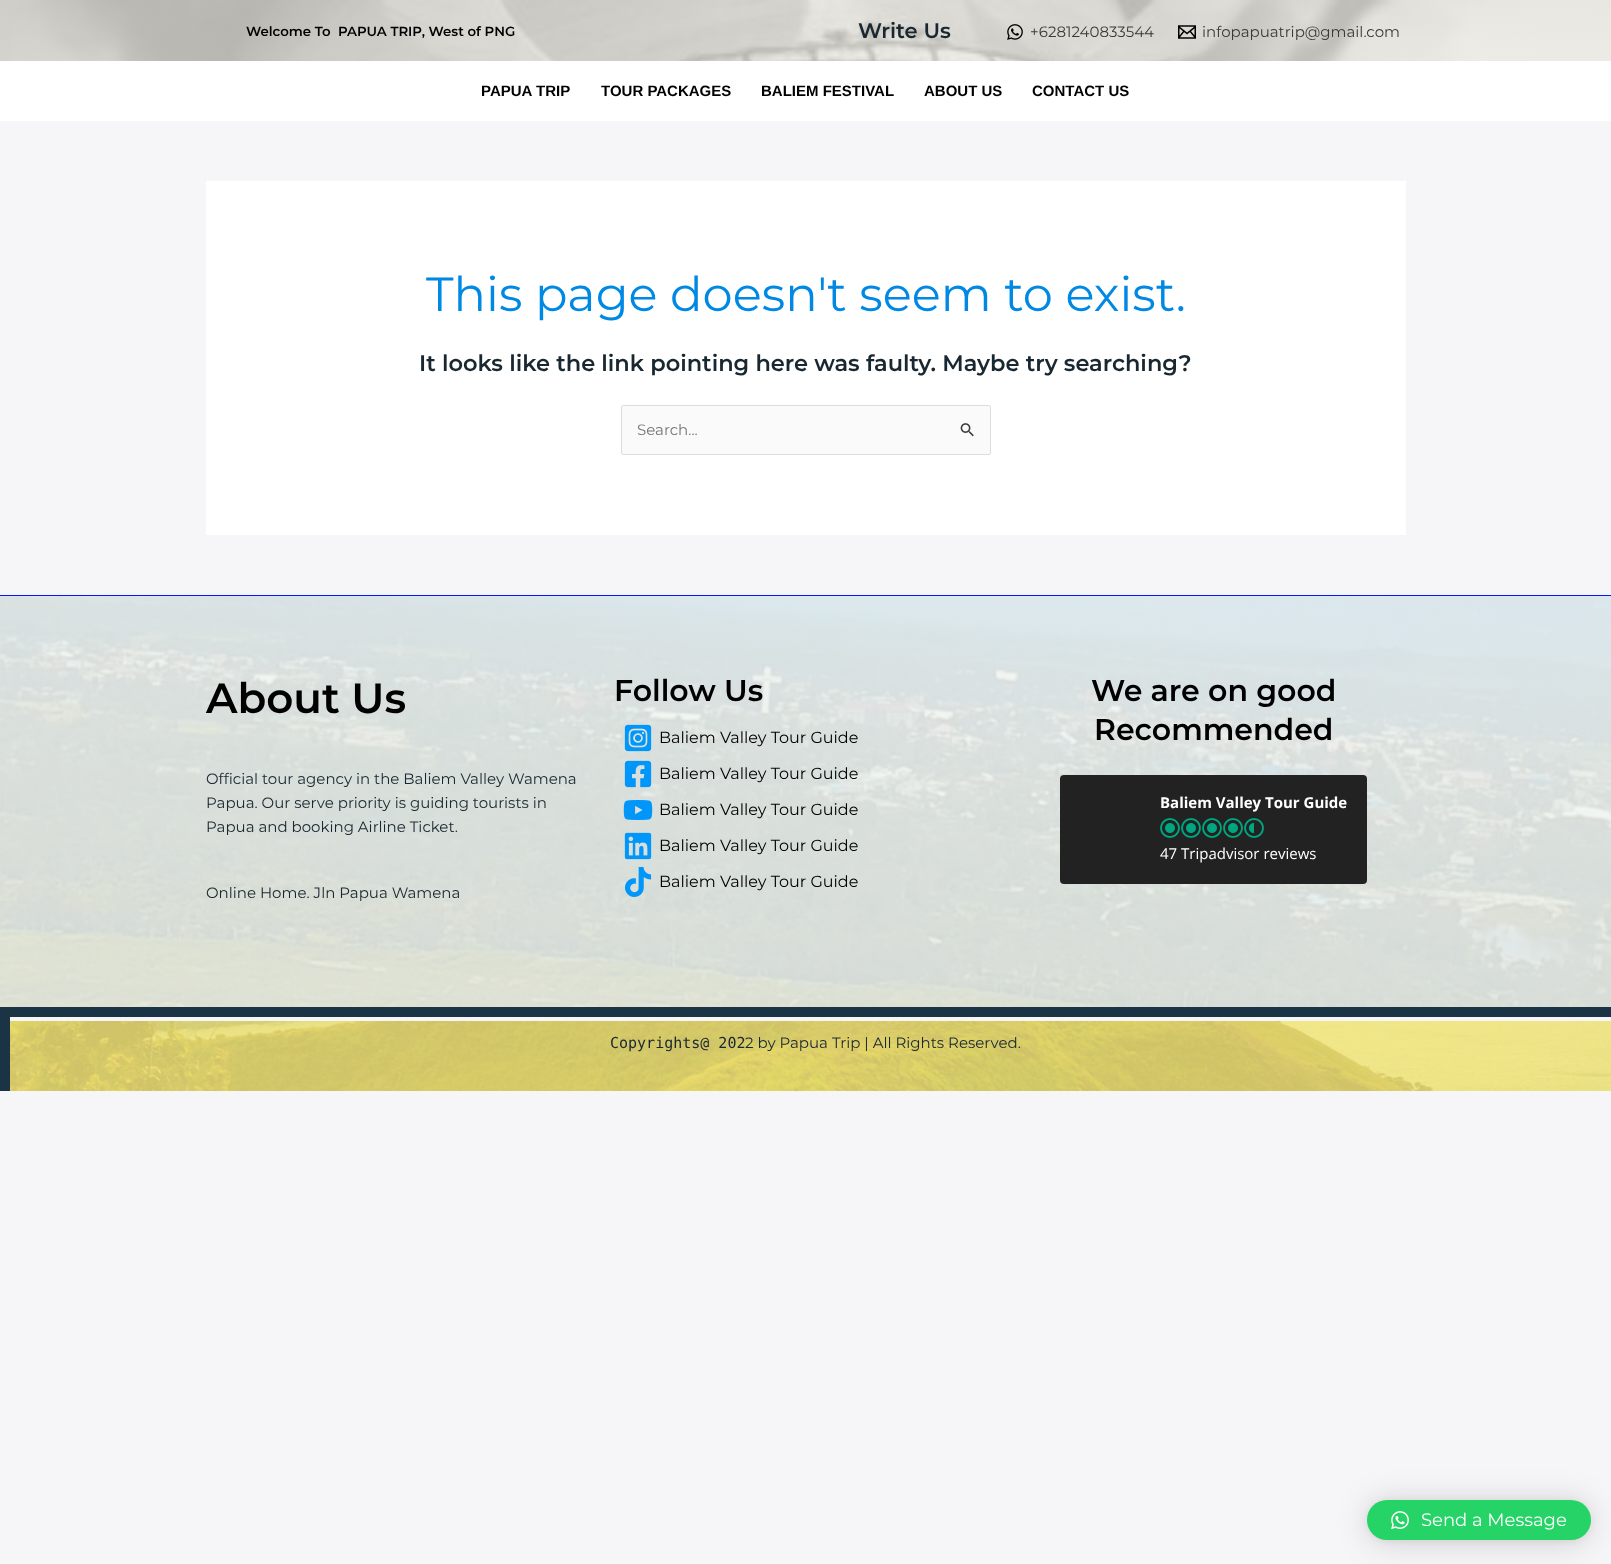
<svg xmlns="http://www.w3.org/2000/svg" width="1611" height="1564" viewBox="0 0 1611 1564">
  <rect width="100%" height="100%" fill="rgb(246,246,248)"/>
  <image x="0" y="0" width="1611" height="61" href="pic1.png"/>
  <text x="246" y="36" font-family="Montserrat" font-size="13.3" font-weight="600" fill="rgb(0,0,0)" xml:space="preserve">Welcome To  PAPUA TRIP, West of PNG</text>
  <text x="858" y="38" font-family="Montserrat" font-size="21" font-weight="600" fill="rgb(25,39,48)">Write Us</text>
  <image x="1007" y="24" width="16" height="16" href="pic2.png"/>
  <text x="1030" y="37" font-family="Montserrat" font-size="15" fill="rgb(58,58,58)">+6281240833544</text>
  <image x="1178" y="25" width="18" height="14" href="pic3.png"/>
  <text x="1202" y="37" font-family="Montserrat" font-size="15" fill="rgb(58,58,58)">infopapuatrip@gmail.com</text>
  <rect x="0" y="61" width="1611" height="60" fill="rgb(255,255,255)"/>
  <g font-family="Liberation Sans" font-size="15" font-weight="bold" fill="rgb(0,0,0)">
    <text x="481" y="96">PAPUA TRIP</text>
    <text x="601" y="96">TOUR PACKAGES</text>
    <text x="761" y="96">BALIEM FESTIVAL</text>
    <text x="924" y="96">ABOUT US</text>
    <text x="1032" y="96">CONTACT US</text>
  </g>
  <rect x="206" y="181" width="1200" height="354" fill="rgb(255,255,255)"/>
  <text x="426" y="311" font-family="Montserrat" font-size="48" fill="rgb(0,137,228)">This page doesn't seem to exist.</text>
  <text x="419" y="371" font-family="Montserrat" font-size="22.5" font-weight="600" fill="rgb(25,39,48)">It looks like the link pointing here was faulty. Maybe try searching?</text>
  <rect x="621.5" y="405.5" width="369" height="49" rx="1.5" fill="rgb(250,250,250)" stroke="rgb(221,221,221)"/>
  <text x="637" y="435" font-family="Montserrat" font-size="15" fill="rgb(117,117,117)">Search...</text>
  <image x="960" y="423" width="14" height="14" href="pic4.png"/>
  <rect x="0" y="1007" width="1611" height="84" fill="rgb(26,52,70)"/>
  <image x="0" y="595" width="1611" height="412" href="pic5.png"/>
  <rect x="0" y="595" width="1611" height="1" fill="rgba(0,21,247,0.99)"/>
  <text x="206" y="713" font-family="Montserrat" font-size="42" font-weight="600" fill="rgb(0,0,0)">About Us</text>
  <g font-family="Montserrat" font-size="15" fill="rgb(25,39,48)">
    <text>
      <tspan x="206" y="784">Official tour agency in the Baliem Valley Wamena</tspan>
      <tspan x="206" y="808">Papua. Our serve priority is guiding tourists in</tspan>
      <tspan x="206" y="832">Papua and booking Airline Ticket.</tspan>
    </text>
    <text x="206" y="898">Online Home. Jln Papua Wamena</text>
  </g>
  <text x="614" y="701" font-family="Montserrat" font-size="30" font-weight="600" fill="rgb(0,0,0)">Follow Us</text>
  <image x="624" y="724" width="28" height="28" href="pic6.png"/>
  <text x="659" y="743" font-family="Montserrat" font-size="16" fill="rgb(0,0,0)">Baliem Valley Tour Guide</text>
  <image x="624" y="760" width="28" height="28" href="pic7.png"/>
  <text x="659" y="779" font-family="Montserrat" font-size="16" fill="rgb(0,0,0)">Baliem Valley Tour Guide</text>
  <image x="623" y="800" width="30" height="20" href="pic8.png"/>
  <text x="659" y="815" font-family="Montserrat" font-size="16" fill="rgb(0,0,0)">Baliem Valley Tour Guide</text>
  <image x="624" y="832" width="28" height="28" href="pic9.png"/>
  <text x="659" y="851" font-family="Montserrat" font-size="16" fill="rgb(0,0,0)">Baliem Valley Tour Guide</text>
  <image x="625" y="867" width="27" height="30" href="pic10.png"/>
  <text x="659" y="887" font-family="Montserrat" font-size="16" fill="rgb(0,0,0)">Baliem Valley Tour Guide</text>
  <g font-family="Montserrat" font-size="30" font-weight="600" fill="rgb(0,0,0)">
    <text x="1091" y="701">We are on good</text>
    <text x="1094" y="740">Recommended</text>
  </g>
  <rect x="1060" y="775" width="307" height="109" rx="4" fill="rgb(34,34,34)"/>
  <text x="1160" y="808" font-family="Open Sans" font-size="15" font-weight="bold" fill="rgb(255,255,255)">Baliem Valley Tour Guide</text>
  <image x="1160" y="818" width="20" height="20" href="pic11.png"/>
  <image x="1181" y="818" width="20" height="20" href="pic11.png"/>
  <image x="1202" y="818" width="20" height="20" href="pic11.png"/>
  <image x="1223" y="818" width="20" height="20" href="pic11.png"/>
  <image x="1244" y="818" width="20" height="20" href="pic12.png"/>
  <text x="1160" y="859" font-family="Open Sans" font-size="15" fill="rgb(255,255,255)">47 Tripadvisor reviews</text>
  <image x="10" y="1021" width="1601" height="70" href="pic13.png"/>
  <rect x="10" y="1017" width="1601" height="4" fill="rgb(246,246,248)"/>
  <text x="610" y="1048" font-family="DejaVu Sans Mono" font-size="15" fill="rgb(25,39,48)">Copyrights@ 202</text>
  <text x="745" y="1048" font-family="Montserrat" font-size="15" fill="rgb(25,39,48)">2 by Papua Trip | All Rights Reserved.</text>
  <rect x="1367" y="1502" width="224" height="40" rx="20" fill="rgba(0,0,0,0.16)" filter="blur(16px)"/>
  <rect x="1367" y="1501" width="224" height="40" rx="20" fill="rgba(0,0,0,0.06)" filter="blur(3px)"/>
  <rect x="1367" y="1500" width="224" height="40" rx="20" fill="rgb(37,211,102)"/>
  <image x="1391" y="1511" width="18" height="19" href="pic14.png"/>
  <text x="1421" y="1526" font-family="Montserrat" font-size="18" fill="rgb(255,255,255)">Send a Message</text>
</svg>
